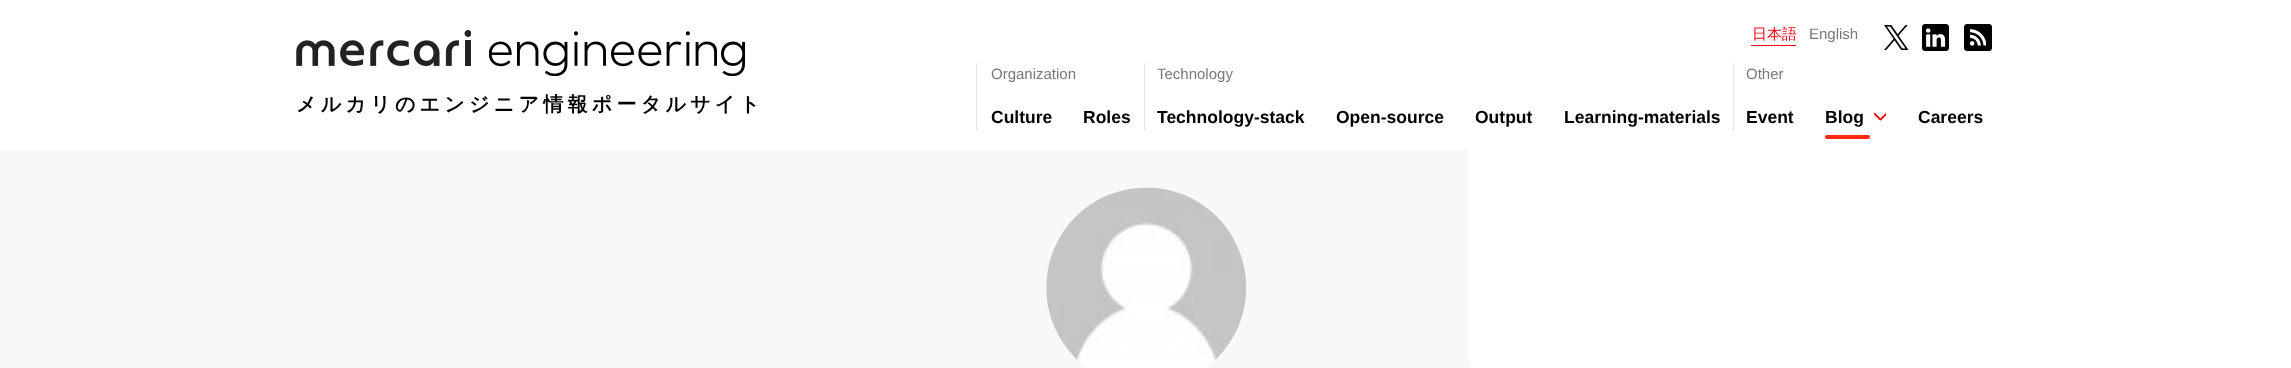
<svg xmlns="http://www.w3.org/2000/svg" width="2291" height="368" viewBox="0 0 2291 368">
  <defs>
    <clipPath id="clip1"><rect x="1468" y="150" width="823" height="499"/></clipPath>
  </defs>
  <rect width="100%" height="100%" fill="rgb(255,255,255)"/>
  <image x="296" y="30" width="175" height="36" href="pic1.png"/>
  <image x="489" y="31" width="256" height="45" href="pic2.png"/>
  <text x="296" y="111" font-family="WenQuanYi Zen Hei" font-size="20" font-weight="bold" letter-spacing="4.25" fill="rgb(0,0,0)">メルカリのエンジニア情報ポータルサイト</text>
  <rect x="1751" y="45" width="45" height="1" fill="rgb(255,2,17)"/>
  <text x="1752" y="39" font-family="WenQuanYi Zen Hei" font-size="15" font-weight="500" fill="rgb(255,2,17)">日本語</text>
  <text x="1809" y="39" font-family="Liberation Sans" font-size="15" fill="rgb(120,120,120)">English</text>
  <image x="1884" y="25" width="25" height="25" href="pic3.png"/>
  <image x="1922" y="24" width="27" height="27" href="pic4.png"/>
  <image x="1964" y="24" width="28" height="27" href="pic5.png"/>
  <rect x="976" y="63" width="1" height="68" fill="rgb(230,230,230)"/>
  <text x="991" y="79" font-family="Liberation Sans" font-size="15" fill="rgb(120,120,120)">Organization</text>
  <g font-family="Liberation Sans" font-size="17.5" font-weight="bold" fill="rgb(0,0,0)">
    <text x="991" y="123">Culture</text>
    <text x="1083" y="123">Roles</text>
  </g>
  <rect x="1144" y="63" width="1" height="68" fill="rgb(230,230,230)"/>
  <text x="1157" y="79" font-family="Liberation Sans" font-size="15" fill="rgb(120,120,120)">Technology</text>
  <g font-family="Liberation Sans" font-size="17.5" font-weight="bold" fill="rgb(0,0,0)">
    <text x="1157" y="123">Technology-stack</text>
    <text x="1336" y="123">Open-source</text>
    <text x="1475" y="123">Output</text>
    <text x="1564" y="123">Learning-materials</text>
  </g>
  <rect x="1733" y="63" width="1" height="68" fill="rgb(230,230,230)"/>
  <text x="1746" y="79" font-family="Liberation Sans" font-size="15" fill="rgb(120,120,120)">Other</text>
  <g font-family="Liberation Sans" font-size="17.5" font-weight="bold" fill="rgb(0,0,0)">
    <text x="1746" y="123">Event</text>
    <text x="1825" y="123">Blog</text>
  </g>
  <rect x="1825" y="135" width="45" height="4" rx="2" fill="rgb(254,40,17)"/>
  <image x="1874" y="112" width="12" height="9" href="pic6.png"/>
  <text x="1918" y="123" font-family="Liberation Sans" font-size="17.5" font-weight="bold" fill="rgb(0,0,0)">Careers</text>
  <rect x="0" y="150" width="1471" height="218" fill="rgb(248,248,248)"/>
  <g clip-path="url(#clip1)">
    <path d="M2024 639C1999 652 1969 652 1944 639L1517 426C1487 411 1468 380 1468 346V25H2291V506Z" fill="rgb(255,255,255)"/>
  </g>
  <image x="1046" y="187" width="200" height="181" href="pic7.png"/>
</svg>
